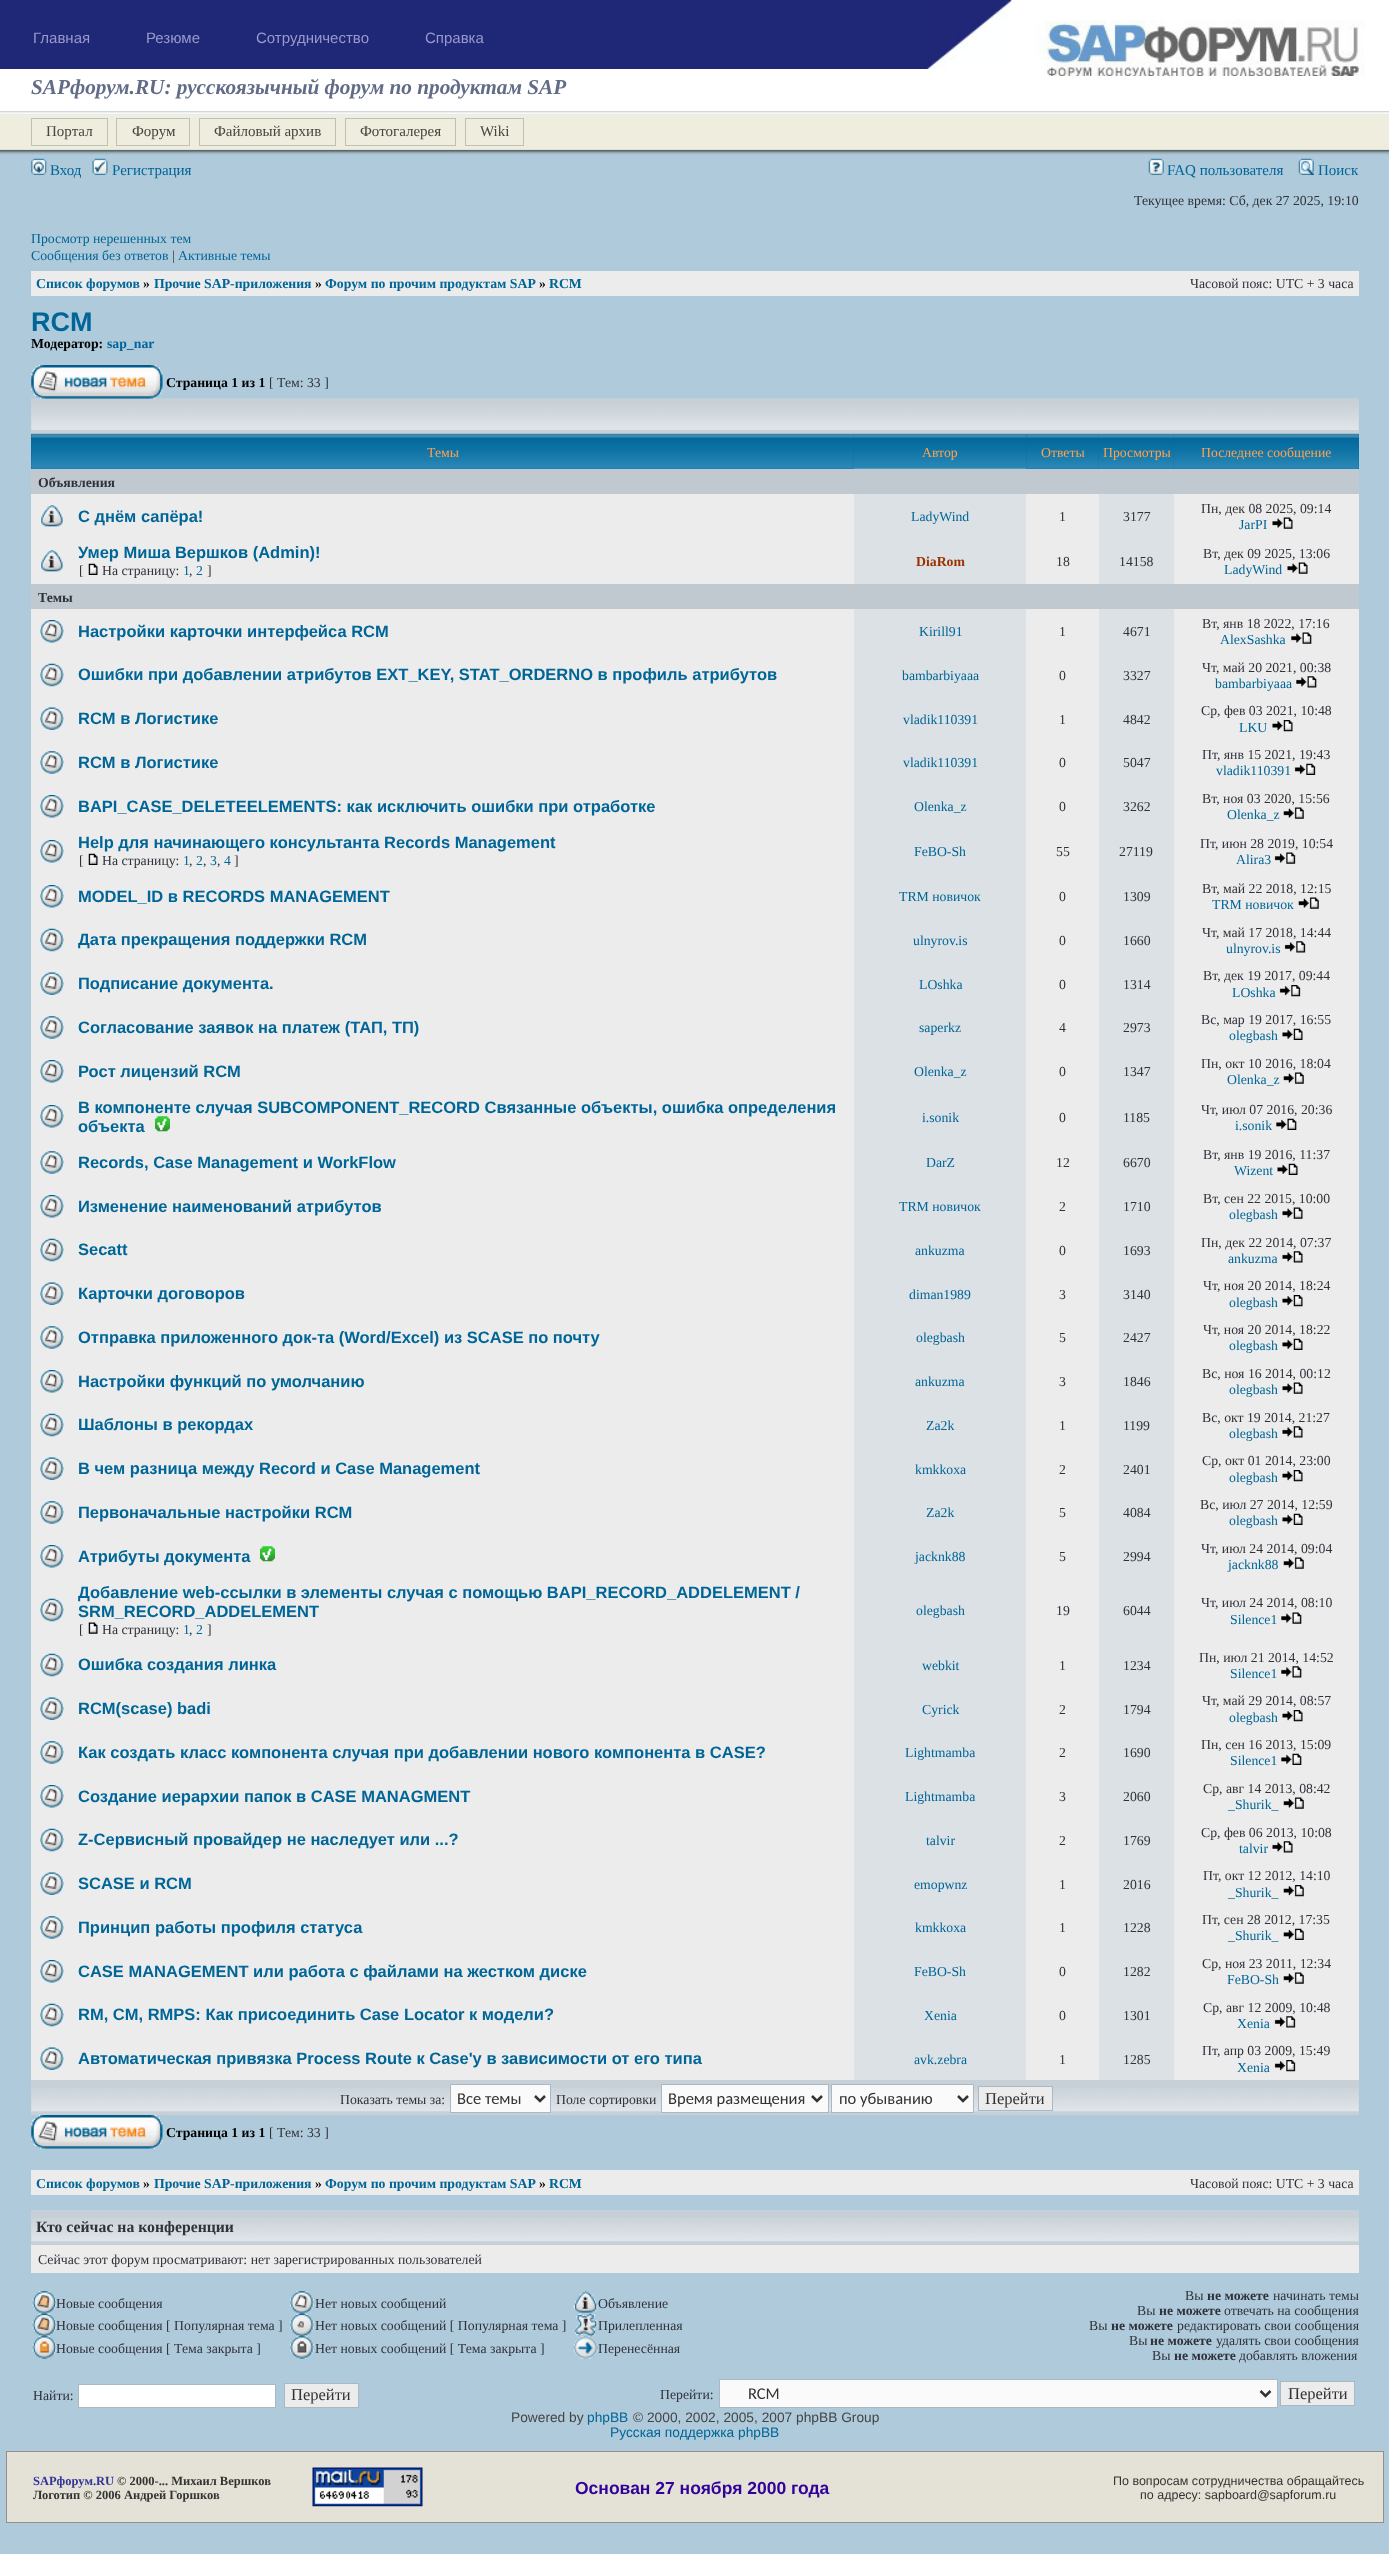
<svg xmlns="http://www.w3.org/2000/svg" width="1389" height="2554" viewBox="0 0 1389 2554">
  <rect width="100%" height="100%" fill="rgb(175,203,219)"/>
  <rect x="0" y="0" width="928" height="69" fill="rgb(31,39,119)"/>
  <g font-family="Liberation Sans" font-size="15" fill="rgb(153,153,204)">
    <text x="33" y="43">Главная</text>
    <text x="146" y="43">Резюме</text>
    <text x="256" y="43">Сотрудничество</text>
    <text x="425" y="43">Справка</text>
  </g>
  <rect x="0" y="69" width="928" height="7" fill="rgb(255,255,255)"/>
  <rect x="928" y="0" width="461" height="76" fill="rgb(255,255,255)"/>
  <image x="927" y="0" width="85" height="69" href="pic1.png"/>
  <image x="1035" y="20" width="330" height="56" href="pic2.png"/>
  <rect x="0" y="76" width="1389" height="35" fill="rgb(255,255,255)"/>
  <text x="31" y="94" font-family="Liberation Serif" font-size="21.25" font-weight="bold" font-style="italic" fill="rgb(98,108,135)">SAPфорум.RU: русскоязычный форум по продуктам SAP</text>
  <image x="0" y="111" width="1389" height="44" href="pic3.png"/>
  <rect x="32" y="138" width="75" height="7" fill="rgb(239,237,222)"/>
  <rect x="31.5" y="118.5" width="76" height="27" fill="none" stroke="rgb(194,192,178)"/>
  <text x="46" y="136" font-family="Liberation Serif" font-size="15" fill="rgb(71,70,62)">Портал</text>
  <rect x="117" y="138" width="72" height="7" fill="rgb(239,237,222)"/>
  <rect x="116.5" y="118.5" width="73" height="27" fill="none" stroke="rgb(194,192,178)"/>
  <text x="132" y="136" font-family="Liberation Serif" font-size="15" fill="rgb(71,70,62)">Форум</text>
  <rect x="200" y="138" width="135" height="7" fill="rgb(239,237,222)"/>
  <rect x="199.5" y="118.5" width="136" height="27" fill="none" stroke="rgb(194,192,178)"/>
  <text x="214" y="136" font-family="Liberation Serif" font-size="15" fill="rgb(71,70,62)">Файловый архив</text>
  <rect x="346" y="138" width="109" height="7" fill="rgb(239,237,222)"/>
  <rect x="345.5" y="118.5" width="110" height="27" fill="none" stroke="rgb(194,192,178)"/>
  <text x="360" y="136" font-family="Liberation Serif" font-size="15" fill="rgb(71,70,62)">Фотогалерея</text>
  <rect x="466" y="138" width="57" height="7" fill="rgb(239,237,222)"/>
  <rect x="465.5" y="118.5" width="58" height="27" fill="none" stroke="rgb(194,192,178)"/>
  <text x="480" y="136" font-family="Liberation Serif" font-size="15" fill="rgb(71,70,62)">Wiki</text>
  <image x="31" y="158" width="16" height="17" href="pic4.png"/>
  <text x="50" y="175" font-family="Liberation Serif" font-size="15" fill="rgb(0,101,151)">Вход</text>
  <image x="92" y="158" width="16" height="17" href="pic5.png"/>
  <text x="112" y="175" font-family="Liberation Serif" font-size="15" fill="rgb(0,101,151)">Регистрация</text>
  <image x="1148" y="158" width="16" height="17" href="pic6.png"/>
  <text x="1167" y="175" font-family="Liberation Serif" font-size="15" fill="rgb(0,101,151)">FAQ пользователя</text>
  <image x="1298" y="158" width="16" height="17" href="pic7.png"/>
  <text x="1318" y="175" font-family="Liberation Serif" font-size="15" fill="rgb(0,101,151)">Поиск</text>
  <text x="1134" y="205" font-family="Liberation Serif" font-size="13.75" fill="rgb(48,50,58)">Текущее время: Сб, дек 27 2025, 19:10</text>
  <g font-family="Liberation Serif" font-size="13.75" fill="rgb(0,101,151)">
    <text>
      <tspan x="31" y="243">Просмотр нерешенных тем</tspan>
      <tspan x="31" y="260">Сообщения без ответов</tspan>
    </text>
  </g>
  <text x="172" y="260" font-family="Liberation Serif" font-size="13.75" fill="rgb(48,50,58)">|</text>
  <text x="178" y="260" font-family="Liberation Serif" font-size="13.75" fill="rgb(0,101,151)">Активные темы</text>
  <rect x="31" y="271" width="1328" height="25" fill="rgb(236,236,236)"/>
  <text x="36" y="288" font-family="Liberation Serif" font-size="13.75" font-weight="bold" fill="rgb(0,101,151)">Список форумов</text>
  <text x="143" y="288" font-family="Liberation Serif" font-size="13.75" font-weight="bold" fill="rgb(0,0,0)">»</text>
  <text x="154" y="288" font-family="Liberation Serif" font-size="13.75" font-weight="bold" fill="rgb(0,101,151)">Прочие SAP-приложения</text>
  <text x="315" y="288" font-family="Liberation Serif" font-size="13.75" font-weight="bold" fill="rgb(0,0,0)">»</text>
  <text x="325" y="288" font-family="Liberation Serif" font-size="13.75" font-weight="bold" fill="rgb(0,101,151)">Форум по прочим продуктам SAP</text>
  <text x="539" y="288" font-family="Liberation Serif" font-size="13.75" font-weight="bold" fill="rgb(0,0,0)">»</text>
  <text x="549" y="288" font-family="Liberation Serif" font-size="13.75" font-weight="bold" fill="rgb(0,101,151)">RCM</text>
  <text x="1190" y="288" font-family="Liberation Serif" font-size="13.75" fill="rgb(48,50,58)">Часовой пояс: UTC + 3 часа</text>
  <text x="31" y="331" font-family="Liberation Sans" font-size="27" font-weight="bold" fill="rgb(0,101,151)">RCM</text>
  <text x="31" y="348" font-family="Liberation Serif" font-size="13.75" font-weight="bold" fill="rgb(0,0,0)">Модератор:</text>
  <text x="107" y="348" font-family="Liberation Serif" font-size="13.75" font-weight="bold" fill="rgb(0,101,151)">sap_nar</text>
  <rect x="31" y="399" width="1328" height="35" fill="rgb(199,208,215)"/>
  <image x="31" y="398" width="1328" height="32" href="pic9.png"/>
  <image x="31" y="365" width="132" height="34" href="pic8.png"/>
  <text x="166" y="387" font-family="Liberation Serif" font-size="13.75" font-weight="bold" fill="rgb(0,0,0)">Страница 1 из 1</text>
  <text x="269" y="387" font-family="Liberation Serif" font-size="13.75" fill="rgb(48,50,58)">[ Тем: 33 ]</text>
  <rect x="31" y="434" width="823" height="35" fill="rgb(0,102,153)"/>
  <image x="31" y="433" width="823" height="36" href="pic10.png"/>
  <text x="427" y="457" font-family="Liberation Serif" font-size="13.75" fill="rgb(255,163,79)">Темы</text>
  <image x="853" y="433" width="174" height="36" href="pic11.png"/>
  <text x="922" y="457" font-family="Liberation Serif" font-size="13.75" fill="rgb(255,163,79)">Автор</text>
  <rect x="1026" y="434" width="333" height="35" fill="rgb(0,102,153)"/>
  <image x="1026" y="433" width="73" height="36" href="pic12.png"/>
  <text x="1041" y="457" font-family="Liberation Serif" font-size="13.75" fill="rgb(255,163,79)">Ответы</text>
  <image x="1098" y="433" width="76" height="36" href="pic13.png"/>
  <text x="1103" y="457" font-family="Liberation Serif" font-size="13.75" fill="rgb(255,163,79)">Просмотры</text>
  <image x="1173" y="433" width="186" height="36" href="pic14.png"/>
  <text x="1201" y="457" font-family="Liberation Serif" font-size="13.75" fill="rgb(255,163,79)">Последнее сообщение</text>
  <rect x="31" y="469" width="1328" height="25" fill="rgb(192,200,208)"/>
  <text x="38" y="487" font-family="Liberation Serif" font-size="13.75" font-weight="bold" fill="rgb(48,50,58)">Объявления</text>
  <rect x="31" y="494" width="823" height="44" fill="rgb(236,236,236)"/>
  <image x="40" y="505" width="24" height="22" href="pic15.png"/>
  <rect x="1174" y="494" width="185" height="90" fill="rgb(236,236,236)"/>
  <text x="1201" y="513" font-family="Liberation Serif" font-size="13.75" fill="rgb(48,50,58)">Пн, дек 08 2025, 09:14</text>
  <text x="1239" y="529" font-family="Liberation Serif" font-size="13.75" fill="rgb(0,101,151)">JarPI</text>
  <image x="1272" y="517" width="21" height="12" href="pic16.png"/>
  <text x="78" y="522" font-family="Liberation Sans" font-size="16.5" font-weight="bold" fill="rgb(0,101,151)">С днём сапёра!</text>
  <rect x="854" y="494" width="172" height="90" fill="rgb(220,225,229)"/>
  <text x="911" y="521" font-family="Liberation Serif" font-size="13.75" fill="rgb(0,101,151)">LadyWind</text>
  <rect x="1026" y="494" width="73" height="90" fill="rgb(236,236,236)"/>
  <text x="1059" y="521" font-family="Liberation Serif" font-size="13.75" fill="rgb(48,50,58)">1</text>
  <rect x="1099" y="494" width="75" height="90" fill="rgb(220,225,229)"/>
  <text x="1123" y="521" font-family="Liberation Serif" font-size="13.75" fill="rgb(48,50,58)">3177</text>
  <rect x="31" y="538" width="823" height="46" fill="rgb(236,236,236)"/>
  <image x="40" y="550" width="24" height="22" href="pic15.png"/>
  <text x="78" y="558" font-family="Liberation Sans" font-size="16.5" font-weight="bold" fill="rgb(0,101,151)">Умер Миша Вершков (Admin)!</text>
  <text x="79" y="575" font-family="Liberation Serif" font-size="13.75" fill="rgb(48,50,58)">[</text>
  <image x="88" y="563" width="10" height="12" href="pic17.png"/>
  <text x="102" y="575" font-family="Liberation Serif" font-size="13.75" fill="rgb(48,50,58)">На страницу:</text>
  <text x="183" y="575" font-family="Liberation Serif" font-size="13.75" fill="rgb(0,101,151)">1</text>
  <text x="189" y="575" font-family="Liberation Serif" font-size="13.75" fill="rgb(48,50,58)">,</text>
  <text x="196" y="575" font-family="Liberation Serif" font-size="13.75" fill="rgb(0,101,151)">2</text>
  <text x="207" y="575" font-family="Liberation Serif" font-size="13.75" fill="rgb(48,50,58)">]</text>
  <text x="916" y="566" font-family="Liberation Serif" font-size="13.75" font-weight="bold" fill="rgb(153,51,0)">DiaRom</text>
  <g font-family="Liberation Serif" font-size="13.75" fill="rgb(48,50,58)">
    <text x="1056" y="566">18</text>
    <text x="1119" y="566">14158</text>
    <text x="1203" y="558">Вт, дек 09 2025, 13:06</text>
  </g>
  <text x="1224" y="574" font-family="Liberation Serif" font-size="13.75" fill="rgb(0,101,151)">LadyWind</text>
  <image x="1287" y="562" width="21" height="12" href="pic16.png"/>
  <rect x="31" y="584" width="1328" height="25" fill="rgb(192,200,208)"/>
  <text x="38" y="602" font-family="Liberation Serif" font-size="13.75" font-weight="bold" fill="rgb(48,50,58)">Темы</text>
  <rect x="31" y="609" width="823" height="44" fill="rgb(236,236,236)"/>
  <image x="40" y="620" width="24" height="23" href="pic18.png"/>
  <rect x="1174" y="609" width="185" height="1471" fill="rgb(236,236,236)"/>
  <text x="1202" y="628" font-family="Liberation Serif" font-size="13.75" fill="rgb(48,50,58)">Вт, янв 18 2022, 17:16</text>
  <text x="1220" y="644" font-family="Liberation Serif" font-size="13.75" fill="rgb(0,101,151)">AlexSashka</text>
  <image x="1291" y="632" width="21" height="12" href="pic19.png"/>
  <text x="78" y="637" font-family="Liberation Sans" font-size="16.5" font-weight="bold" fill="rgb(0,101,151)">Настройки карточки интерфейса RCM</text>
  <rect x="854" y="609" width="172" height="1471" fill="rgb(220,225,229)"/>
  <text x="919" y="636" font-family="Liberation Serif" font-size="13.75" fill="rgb(0,101,151)">Kirill91</text>
  <rect x="1026" y="609" width="73" height="1471" fill="rgb(236,236,236)"/>
  <text x="1059" y="636" font-family="Liberation Serif" font-size="13.75" fill="rgb(48,50,58)">1</text>
  <rect x="1099" y="609" width="75" height="1471" fill="rgb(220,225,229)"/>
  <text x="1123" y="636" font-family="Liberation Serif" font-size="13.75" fill="rgb(48,50,58)">4671</text>
  <rect x="31" y="653" width="823" height="43" fill="rgb(236,236,236)"/>
  <image x="40" y="663" width="24" height="24" href="pic20.png"/>
  <text x="1202" y="672" font-family="Liberation Serif" font-size="13.75" fill="rgb(48,50,58)">Чт, май 20 2021, 00:38</text>
  <text x="1215" y="688" font-family="Liberation Serif" font-size="13.75" fill="rgb(0,101,151)">bambarbiyaaa</text>
  <image x="1296" y="676" width="21" height="12" href="pic21.png"/>
  <text x="78" y="680" font-family="Liberation Sans" font-size="16.5" font-weight="bold" fill="rgb(0,101,151)">Ошибки при добавлении атрибутов EXT_KEY, STAT_ORDERNO в профиль атрибутов</text>
  <text x="902" y="680" font-family="Liberation Serif" font-size="13.75" fill="rgb(0,101,151)">bambarbiyaaa</text>
  <g font-family="Liberation Serif" font-size="13.75" fill="rgb(48,50,58)">
    <text x="1059" y="680">0</text>
    <text x="1123" y="680">3327</text>
  </g>
  <rect x="31" y="696" width="823" height="44" fill="rgb(236,236,236)"/>
  <image x="40" y="707" width="24" height="23" href="pic22.png"/>
  <text x="1201" y="715" font-family="Liberation Serif" font-size="13.75" fill="rgb(48,50,58)">Ср, фев 03 2021, 10:48</text>
  <text x="1239" y="732" font-family="Liberation Serif" font-size="13.75" fill="rgb(0,101,151)">LKU</text>
  <image x="1272" y="720" width="21" height="12" href="pic23.png"/>
  <text x="78" y="724" font-family="Liberation Sans" font-size="16.5" font-weight="bold" fill="rgb(0,101,151)">RCM в Логистике</text>
  <text x="903" y="724" font-family="Liberation Serif" font-size="13.75" fill="rgb(0,101,151)">vladik110391</text>
  <g font-family="Liberation Serif" font-size="13.75" fill="rgb(48,50,58)">
    <text x="1059" y="724">1</text>
    <text x="1123" y="724">4842</text>
  </g>
  <rect x="31" y="740" width="823" height="44" fill="rgb(236,236,236)"/>
  <image x="40" y="751" width="24" height="23" href="pic24.png"/>
  <text x="1202" y="759" font-family="Liberation Serif" font-size="13.75" fill="rgb(48,50,58)">Пт, янв 15 2021, 19:43</text>
  <text x="1216" y="775" font-family="Liberation Serif" font-size="13.75" fill="rgb(0,101,151)">vladik110391</text>
  <image x="1294" y="763" width="22" height="12" href="pic25.png"/>
  <text x="78" y="768" font-family="Liberation Sans" font-size="16.5" font-weight="bold" fill="rgb(0,101,151)">RCM в Логистике</text>
  <text x="903" y="767" font-family="Liberation Serif" font-size="13.75" fill="rgb(0,101,151)">vladik110391</text>
  <g font-family="Liberation Serif" font-size="13.75" fill="rgb(48,50,58)">
    <text x="1059" y="767">0</text>
    <text x="1123" y="767">5047</text>
  </g>
  <rect x="31" y="784" width="823" height="44" fill="rgb(236,236,236)"/>
  <image x="40" y="795" width="24" height="23" href="pic18.png"/>
  <text x="1202" y="803" font-family="Liberation Serif" font-size="13.75" fill="rgb(48,50,58)">Вт, ноя 03 2020, 15:56</text>
  <text x="1227" y="819" font-family="Liberation Serif" font-size="13.75" fill="rgb(0,101,151)">Olenka_z</text>
  <image x="1283" y="807" width="21" height="12" href="pic26.png"/>
  <text x="78" y="812" font-family="Liberation Sans" font-size="16.5" font-weight="bold" fill="rgb(0,101,151)">BAPI_CASE_DELETEELEMENTS: как исключить ошибки при отработке</text>
  <text x="914" y="811" font-family="Liberation Serif" font-size="13.75" fill="rgb(0,101,151)">Olenka_z</text>
  <g font-family="Liberation Serif" font-size="13.75" fill="rgb(48,50,58)">
    <text x="1059" y="811">0</text>
    <text x="1123" y="811">3262</text>
  </g>
  <rect x="31" y="828" width="823" height="46" fill="rgb(236,236,236)"/>
  <image x="40" y="840" width="24" height="23" href="pic27.png"/>
  <text x="78" y="848" font-family="Liberation Sans" font-size="16.5" font-weight="bold" fill="rgb(0,101,151)">Help для начинающего консультанта Records Management</text>
  <text x="79" y="865" font-family="Liberation Serif" font-size="13.75" fill="rgb(48,50,58)">[</text>
  <image x="88" y="853" width="10" height="12" href="pic17.png"/>
  <text x="102" y="865" font-family="Liberation Serif" font-size="13.75" fill="rgb(48,50,58)">На страницу:</text>
  <text x="183" y="865" font-family="Liberation Serif" font-size="13.75" fill="rgb(0,101,151)">1</text>
  <text x="189" y="865" font-family="Liberation Serif" font-size="13.75" fill="rgb(48,50,58)">,</text>
  <text x="196" y="865" font-family="Liberation Serif" font-size="13.75" fill="rgb(0,101,151)">2</text>
  <text x="203" y="865" font-family="Liberation Serif" font-size="13.75" fill="rgb(48,50,58)">,</text>
  <text x="210" y="865" font-family="Liberation Serif" font-size="13.75" fill="rgb(0,101,151)">3</text>
  <text x="217" y="865" font-family="Liberation Serif" font-size="13.75" fill="rgb(48,50,58)">,</text>
  <text x="224" y="865" font-family="Liberation Serif" font-size="13.75" fill="rgb(0,101,151)">4</text>
  <text x="234" y="865" font-family="Liberation Serif" font-size="13.75" fill="rgb(48,50,58)">]</text>
  <text x="914" y="856" font-family="Liberation Serif" font-size="13.75" fill="rgb(0,101,151)">FeBO-Sh</text>
  <g font-family="Liberation Serif" font-size="13.75" fill="rgb(48,50,58)">
    <text x="1056" y="856">55</text>
    <text x="1119" y="856">27119</text>
    <text x="1200" y="848">Пт, июн 28 2019, 10:54</text>
  </g>
  <text x="1236" y="864" font-family="Liberation Serif" font-size="13.75" fill="rgb(0,101,151)">Alira3</text>
  <image x="1274" y="852" width="22" height="12" href="pic28.png"/>
  <rect x="31" y="874" width="823" height="44" fill="rgb(236,236,236)"/>
  <image x="40" y="885" width="24" height="23" href="pic18.png"/>
  <text x="1202" y="893" font-family="Liberation Serif" font-size="13.75" fill="rgb(48,50,58)">Вт, май 22 2018, 12:15</text>
  <text x="1212" y="909" font-family="Liberation Serif" font-size="13.75" fill="rgb(0,101,151)">TRM новичок</text>
  <image x="1298" y="897" width="21" height="12" href="pic26.png"/>
  <text x="78" y="902" font-family="Liberation Sans" font-size="16.5" font-weight="bold" fill="rgb(0,101,151)">MODEL_ID в RECORDS MANAGEMENT</text>
  <text x="899" y="901" font-family="Liberation Serif" font-size="13.75" fill="rgb(0,101,151)">TRM новичок</text>
  <g font-family="Liberation Serif" font-size="13.75" fill="rgb(48,50,58)">
    <text x="1059" y="901">0</text>
    <text x="1123" y="901">1309</text>
  </g>
  <rect x="31" y="918" width="823" height="43" fill="rgb(236,236,236)"/>
  <image x="40" y="928" width="24" height="24" href="pic20.png"/>
  <text x="1202" y="937" font-family="Liberation Serif" font-size="13.75" fill="rgb(48,50,58)">Чт, май 17 2018, 14:44</text>
  <text x="1226" y="953" font-family="Liberation Serif" font-size="13.75" fill="rgb(0,101,151)">ulnyrov.is</text>
  <image x="1284" y="941" width="22" height="12" href="pic29.png"/>
  <text x="78" y="945" font-family="Liberation Sans" font-size="16.5" font-weight="bold" fill="rgb(0,101,151)">Дата прекращения поддержки RCM</text>
  <text x="913" y="945" font-family="Liberation Serif" font-size="13.75" fill="rgb(0,101,151)">ulnyrov.is</text>
  <g font-family="Liberation Serif" font-size="13.75" fill="rgb(48,50,58)">
    <text x="1059" y="945">0</text>
    <text x="1123" y="945">1660</text>
  </g>
  <rect x="31" y="961" width="823" height="44" fill="rgb(236,236,236)"/>
  <image x="40" y="972" width="24" height="23" href="pic22.png"/>
  <text x="1203" y="980" font-family="Liberation Serif" font-size="13.75" fill="rgb(48,50,58)">Вт, дек 19 2017, 09:44</text>
  <text x="1232" y="997" font-family="Liberation Serif" font-size="13.75" fill="rgb(0,101,151)">LOshka</text>
  <image x="1279" y="985" width="22" height="12" href="pic30.png"/>
  <text x="78" y="989" font-family="Liberation Sans" font-size="16.5" font-weight="bold" fill="rgb(0,101,151)">Подписание документа.</text>
  <text x="919" y="989" font-family="Liberation Serif" font-size="13.75" fill="rgb(0,101,151)">LOshka</text>
  <g font-family="Liberation Serif" font-size="13.75" fill="rgb(48,50,58)">
    <text x="1059" y="989">0</text>
    <text x="1123" y="989">1314</text>
  </g>
  <rect x="31" y="1005" width="823" height="44" fill="rgb(236,236,236)"/>
  <image x="40" y="1016" width="24" height="23" href="pic24.png"/>
  <text x="1201" y="1024" font-family="Liberation Serif" font-size="13.75" fill="rgb(48,50,58)">Вс, мар 19 2017, 16:55</text>
  <text x="1229" y="1040" font-family="Liberation Serif" font-size="13.75" fill="rgb(0,101,151)">olegbash</text>
  <image x="1282" y="1028" width="21" height="12" href="pic31.png"/>
  <text x="78" y="1033" font-family="Liberation Sans" font-size="16.5" font-weight="bold" fill="rgb(0,101,151)">Согласование заявок на платеж (ТАП, ТП)</text>
  <text x="919" y="1032" font-family="Liberation Serif" font-size="13.75" fill="rgb(0,101,151)">saperkz</text>
  <g font-family="Liberation Serif" font-size="13.75" fill="rgb(48,50,58)">
    <text x="1059" y="1032">4</text>
    <text x="1123" y="1032">2973</text>
  </g>
  <rect x="31" y="1049" width="823" height="44" fill="rgb(236,236,236)"/>
  <image x="40" y="1060" width="24" height="23" href="pic18.png"/>
  <text x="1201" y="1068" font-family="Liberation Serif" font-size="13.75" fill="rgb(48,50,58)">Пн, окт 10 2016, 18:04</text>
  <text x="1227" y="1084" font-family="Liberation Serif" font-size="13.75" fill="rgb(0,101,151)">Olenka_z</text>
  <image x="1283" y="1072" width="21" height="12" href="pic26.png"/>
  <text x="78" y="1077" font-family="Liberation Sans" font-size="16.5" font-weight="bold" fill="rgb(0,101,151)">Рост лицензий RCM</text>
  <text x="914" y="1076" font-family="Liberation Serif" font-size="13.75" fill="rgb(0,101,151)">Olenka_z</text>
  <g font-family="Liberation Serif" font-size="13.75" fill="rgb(48,50,58)">
    <text x="1059" y="1076">0</text>
    <text x="1123" y="1076">1347</text>
  </g>
  <rect x="31" y="1093" width="823" height="47" fill="rgb(236,236,236)"/>
  <image x="40" y="1105" width="24" height="23" href="pic18.png"/>
  <g font-family="Liberation Sans" font-size="16.5" font-weight="bold" fill="rgb(0,101,151)">
    <text>
      <tspan x="78" y="1113">В компоненте случая SUBCOMPONENT_RECORD Связанные объекты, ошибка определения</tspan>
      <tspan x="78" y="1132">объекта</tspan>
    </text>
  </g>
  <image x="155" y="1116" width="15" height="16" href="pic32.png"/>
  <text x="922" y="1122" font-family="Liberation Serif" font-size="13.75" fill="rgb(0,101,151)">i.sonik</text>
  <g font-family="Liberation Serif" font-size="13.75" fill="rgb(48,50,58)">
    <text x="1059" y="1122">0</text>
    <text x="1123" y="1122">1185</text>
    <text x="1201" y="1114">Чт, июл 07 2016, 20:36</text>
  </g>
  <text x="1235" y="1130" font-family="Liberation Serif" font-size="13.75" fill="rgb(0,101,151)">i.sonik</text>
  <image x="1276" y="1118" width="21" height="12" href="pic33.png"/>
  <rect x="31" y="1140" width="823" height="44" fill="rgb(236,236,236)"/>
  <image x="40" y="1151" width="24" height="23" href="pic24.png"/>
  <text x="1203" y="1159" font-family="Liberation Serif" font-size="13.75" fill="rgb(48,50,58)">Вт, янв 19 2016, 11:37</text>
  <text x="1234" y="1175" font-family="Liberation Serif" font-size="13.75" fill="rgb(0,101,151)">Wizent</text>
  <image x="1277" y="1163" width="21" height="12" href="pic31.png"/>
  <text x="78" y="1168" font-family="Liberation Sans" font-size="16.5" font-weight="bold" fill="rgb(0,101,151)">Records, Case Management и WorkFlow</text>
  <text x="926" y="1167" font-family="Liberation Serif" font-size="13.75" fill="rgb(0,101,151)">DarZ</text>
  <g font-family="Liberation Serif" font-size="13.75" fill="rgb(48,50,58)">
    <text x="1056" y="1167">12</text>
    <text x="1123" y="1167">6670</text>
  </g>
  <rect x="31" y="1184" width="823" height="44" fill="rgb(236,236,236)"/>
  <image x="40" y="1195" width="24" height="23" href="pic18.png"/>
  <text x="1203" y="1203" font-family="Liberation Serif" font-size="13.75" fill="rgb(48,50,58)">Вт, сен 22 2015, 10:00</text>
  <text x="1229" y="1219" font-family="Liberation Serif" font-size="13.75" fill="rgb(0,101,151)">olegbash</text>
  <image x="1282" y="1207" width="21" height="12" href="pic16.png"/>
  <text x="78" y="1212" font-family="Liberation Sans" font-size="16.5" font-weight="bold" fill="rgb(0,101,151)">Изменение наименований атрибутов</text>
  <text x="899" y="1211" font-family="Liberation Serif" font-size="13.75" fill="rgb(0,101,151)">TRM новичок</text>
  <g font-family="Liberation Serif" font-size="13.75" fill="rgb(48,50,58)">
    <text x="1059" y="1211">2</text>
    <text x="1123" y="1211">1710</text>
  </g>
  <rect x="31" y="1228" width="823" height="43" fill="rgb(236,236,236)"/>
  <image x="40" y="1238" width="24" height="24" href="pic20.png"/>
  <text x="1201" y="1247" font-family="Liberation Serif" font-size="13.75" fill="rgb(48,50,58)">Пн, дек 22 2014, 07:37</text>
  <text x="1228" y="1263" font-family="Liberation Serif" font-size="13.75" fill="rgb(0,101,151)">ankuzma</text>
  <image x="1282" y="1251" width="21" height="12" href="pic34.png"/>
  <text x="78" y="1255" font-family="Liberation Sans" font-size="16.5" font-weight="bold" fill="rgb(0,101,151)">Secatt</text>
  <text x="915" y="1255" font-family="Liberation Serif" font-size="13.75" fill="rgb(0,101,151)">ankuzma</text>
  <g font-family="Liberation Serif" font-size="13.75" fill="rgb(48,50,58)">
    <text x="1059" y="1255">0</text>
    <text x="1123" y="1255">1693</text>
  </g>
  <rect x="31" y="1271" width="823" height="44" fill="rgb(236,236,236)"/>
  <image x="40" y="1282" width="24" height="23" href="pic22.png"/>
  <text x="1203" y="1290" font-family="Liberation Serif" font-size="13.75" fill="rgb(48,50,58)">Чт, ноя 20 2014, 18:24</text>
  <text x="1229" y="1307" font-family="Liberation Serif" font-size="13.75" fill="rgb(0,101,151)">olegbash</text>
  <image x="1282" y="1295" width="21" height="12" href="pic23.png"/>
  <text x="78" y="1299" font-family="Liberation Sans" font-size="16.5" font-weight="bold" fill="rgb(0,101,151)">Карточки договоров</text>
  <text x="909" y="1299" font-family="Liberation Serif" font-size="13.75" fill="rgb(0,101,151)">diman1989</text>
  <g font-family="Liberation Serif" font-size="13.75" fill="rgb(48,50,58)">
    <text x="1059" y="1299">3</text>
    <text x="1123" y="1299">3140</text>
  </g>
  <rect x="31" y="1315" width="823" height="44" fill="rgb(236,236,236)"/>
  <image x="40" y="1326" width="24" height="23" href="pic24.png"/>
  <text x="1203" y="1334" font-family="Liberation Serif" font-size="13.75" fill="rgb(48,50,58)">Чт, ноя 20 2014, 18:22</text>
  <text x="1229" y="1350" font-family="Liberation Serif" font-size="13.75" fill="rgb(0,101,151)">olegbash</text>
  <image x="1282" y="1338" width="21" height="12" href="pic31.png"/>
  <text x="78" y="1343" font-family="Liberation Sans" font-size="16.5" font-weight="bold" fill="rgb(0,101,151)">Отправка приложенного док-та (Word/Excel) из SCASE по почту</text>
  <text x="916" y="1342" font-family="Liberation Serif" font-size="13.75" fill="rgb(0,101,151)">olegbash</text>
  <g font-family="Liberation Serif" font-size="13.75" fill="rgb(48,50,58)">
    <text x="1059" y="1342">5</text>
    <text x="1123" y="1342">2427</text>
  </g>
  <rect x="31" y="1359" width="823" height="44" fill="rgb(236,236,236)"/>
  <image x="40" y="1370" width="24" height="23" href="pic18.png"/>
  <text x="1202" y="1378" font-family="Liberation Serif" font-size="13.75" fill="rgb(48,50,58)">Вс, ноя 16 2014, 00:12</text>
  <text x="1229" y="1394" font-family="Liberation Serif" font-size="13.75" fill="rgb(0,101,151)">olegbash</text>
  <image x="1282" y="1382" width="21" height="12" href="pic16.png"/>
  <text x="78" y="1387" font-family="Liberation Sans" font-size="16.5" font-weight="bold" fill="rgb(0,101,151)">Настройки функций по умолчанию</text>
  <text x="915" y="1386" font-family="Liberation Serif" font-size="13.75" fill="rgb(0,101,151)">ankuzma</text>
  <g font-family="Liberation Serif" font-size="13.75" fill="rgb(48,50,58)">
    <text x="1059" y="1386">3</text>
    <text x="1123" y="1386">1846</text>
  </g>
  <rect x="31" y="1403" width="823" height="43" fill="rgb(236,236,236)"/>
  <image x="40" y="1413" width="24" height="24" href="pic20.png"/>
  <text x="1202" y="1422" font-family="Liberation Serif" font-size="13.75" fill="rgb(48,50,58)">Вс, окт 19 2014, 21:27</text>
  <text x="1229" y="1438" font-family="Liberation Serif" font-size="13.75" fill="rgb(0,101,151)">olegbash</text>
  <image x="1282" y="1426" width="21" height="12" href="pic34.png"/>
  <text x="78" y="1430" font-family="Liberation Sans" font-size="16.5" font-weight="bold" fill="rgb(0,101,151)">Шаблоны в рекордах</text>
  <text x="926" y="1430" font-family="Liberation Serif" font-size="13.75" fill="rgb(0,101,151)">Za2k</text>
  <g font-family="Liberation Serif" font-size="13.75" fill="rgb(48,50,58)">
    <text x="1059" y="1430">1</text>
    <text x="1123" y="1430">1199</text>
  </g>
  <rect x="31" y="1446" width="823" height="44" fill="rgb(236,236,236)"/>
  <image x="40" y="1457" width="24" height="23" href="pic22.png"/>
  <text x="1202" y="1465" font-family="Liberation Serif" font-size="13.75" fill="rgb(48,50,58)">Ср, окт 01 2014, 23:00</text>
  <text x="1229" y="1482" font-family="Liberation Serif" font-size="13.75" fill="rgb(0,101,151)">olegbash</text>
  <image x="1282" y="1470" width="21" height="12" href="pic23.png"/>
  <text x="78" y="1474" font-family="Liberation Sans" font-size="16.5" font-weight="bold" fill="rgb(0,101,151)">В чем разница между Record и Case Management</text>
  <text x="915" y="1474" font-family="Liberation Serif" font-size="13.75" fill="rgb(0,101,151)">kmkkoxa</text>
  <g font-family="Liberation Serif" font-size="13.75" fill="rgb(48,50,58)">
    <text x="1059" y="1474">2</text>
    <text x="1123" y="1474">2401</text>
  </g>
  <rect x="31" y="1490" width="823" height="44" fill="rgb(236,236,236)"/>
  <image x="40" y="1501" width="24" height="23" href="pic24.png"/>
  <text x="1200" y="1509" font-family="Liberation Serif" font-size="13.75" fill="rgb(48,50,58)">Вс, июл 27 2014, 12:59</text>
  <text x="1229" y="1525" font-family="Liberation Serif" font-size="13.75" fill="rgb(0,101,151)">olegbash</text>
  <image x="1282" y="1513" width="21" height="12" href="pic31.png"/>
  <text x="78" y="1518" font-family="Liberation Sans" font-size="16.5" font-weight="bold" fill="rgb(0,101,151)">Первоначальные настройки RCM</text>
  <text x="926" y="1517" font-family="Liberation Serif" font-size="13.75" fill="rgb(0,101,151)">Za2k</text>
  <g font-family="Liberation Serif" font-size="13.75" fill="rgb(48,50,58)">
    <text x="1059" y="1517">5</text>
    <text x="1123" y="1517">4084</text>
  </g>
  <rect x="31" y="1534" width="823" height="44" fill="rgb(236,236,236)"/>
  <image x="40" y="1545" width="24" height="23" href="pic18.png"/>
  <text x="1201" y="1553" font-family="Liberation Serif" font-size="13.75" fill="rgb(48,50,58)">Чт, июл 24 2014, 09:04</text>
  <text x="1228" y="1569" font-family="Liberation Serif" font-size="13.75" fill="rgb(0,101,151)">jacknk88</text>
  <image x="1283" y="1557" width="21" height="12" href="pic35.png"/>
  <text x="78" y="1562" font-family="Liberation Sans" font-size="16.5" font-weight="bold" fill="rgb(0,101,151)">Атрибуты документа</text>
  <image x="260" y="1546" width="15" height="16" href="pic32.png"/>
  <text x="915" y="1561" font-family="Liberation Serif" font-size="13.75" fill="rgb(0,101,151)">jacknk88</text>
  <g font-family="Liberation Serif" font-size="13.75" fill="rgb(48,50,58)">
    <text x="1059" y="1561">5</text>
    <text x="1123" y="1561">2994</text>
  </g>
  <rect x="31" y="1578" width="823" height="65" fill="rgb(236,236,236)"/>
  <image x="40" y="1598" width="24" height="24" href="pic20.png"/>
  <g font-family="Liberation Sans" font-size="16.5" font-weight="bold" fill="rgb(0,101,151)">
    <text>
      <tspan x="78" y="1598">Добавление web-ссылки в элементы случая с помощью BAPI_RECORD_ADDELEMENT /</tspan>
      <tspan x="78" y="1617">SRM_RECORD_ADDELEMENT</tspan>
    </text>
  </g>
  <text x="79" y="1634" font-family="Liberation Serif" font-size="13.75" fill="rgb(48,50,58)">[</text>
  <image x="88" y="1622" width="10" height="12" href="pic36.png"/>
  <text x="102" y="1634" font-family="Liberation Serif" font-size="13.75" fill="rgb(48,50,58)">На страницу:</text>
  <text x="183" y="1634" font-family="Liberation Serif" font-size="13.75" fill="rgb(0,101,151)">1</text>
  <text x="189" y="1634" font-family="Liberation Serif" font-size="13.75" fill="rgb(48,50,58)">,</text>
  <text x="196" y="1634" font-family="Liberation Serif" font-size="13.75" fill="rgb(0,101,151)">2</text>
  <text x="207" y="1634" font-family="Liberation Serif" font-size="13.75" fill="rgb(48,50,58)">]</text>
  <text x="916" y="1615" font-family="Liberation Serif" font-size="13.75" fill="rgb(0,101,151)">olegbash</text>
  <g font-family="Liberation Serif" font-size="13.75" fill="rgb(48,50,58)">
    <text x="1056" y="1615">19</text>
    <text x="1123" y="1615">6044</text>
    <text x="1201" y="1607">Чт, июл 24 2014, 08:10</text>
  </g>
  <text x="1230" y="1624" font-family="Liberation Serif" font-size="13.75" fill="rgb(0,101,151)">Silence1</text>
  <image x="1281" y="1612" width="21" height="12" href="pic37.png"/>
  <rect x="31" y="1643" width="823" height="43" fill="rgb(236,236,236)"/>
  <image x="40" y="1653" width="24" height="24" href="pic20.png"/>
  <text x="1199" y="1662" font-family="Liberation Serif" font-size="13.75" fill="rgb(48,50,58)">Пн, июл 21 2014, 14:52</text>
  <text x="1230" y="1678" font-family="Liberation Serif" font-size="13.75" fill="rgb(0,101,151)">Silence1</text>
  <image x="1281" y="1666" width="21" height="12" href="pic38.png"/>
  <text x="78" y="1670" font-family="Liberation Sans" font-size="16.5" font-weight="bold" fill="rgb(0,101,151)">Ошибка создания линка</text>
  <text x="922" y="1670" font-family="Liberation Serif" font-size="13.75" fill="rgb(0,101,151)">webkit</text>
  <g font-family="Liberation Serif" font-size="13.75" fill="rgb(48,50,58)">
    <text x="1059" y="1670">1</text>
    <text x="1123" y="1670">1234</text>
  </g>
  <rect x="31" y="1686" width="823" height="44" fill="rgb(236,236,236)"/>
  <image x="40" y="1697" width="24" height="23" href="pic22.png"/>
  <text x="1202" y="1705" font-family="Liberation Serif" font-size="13.75" fill="rgb(48,50,58)">Чт, май 29 2014, 08:57</text>
  <text x="1229" y="1722" font-family="Liberation Serif" font-size="13.75" fill="rgb(0,101,151)">olegbash</text>
  <image x="1282" y="1710" width="21" height="12" href="pic23.png"/>
  <text x="78" y="1714" font-family="Liberation Sans" font-size="16.5" font-weight="bold" fill="rgb(0,101,151)">RCM(scase) badi</text>
  <text x="922" y="1714" font-family="Liberation Serif" font-size="13.75" fill="rgb(0,101,151)">Cyrick</text>
  <g font-family="Liberation Serif" font-size="13.75" fill="rgb(48,50,58)">
    <text x="1059" y="1714">2</text>
    <text x="1123" y="1714">1794</text>
  </g>
  <rect x="31" y="1730" width="823" height="44" fill="rgb(236,236,236)"/>
  <image x="40" y="1741" width="24" height="23" href="pic24.png"/>
  <text x="1201" y="1749" font-family="Liberation Serif" font-size="13.75" fill="rgb(48,50,58)">Пн, сен 16 2013, 15:09</text>
  <text x="1230" y="1765" font-family="Liberation Serif" font-size="13.75" fill="rgb(0,101,151)">Silence1</text>
  <image x="1281" y="1753" width="21" height="12" href="pic33.png"/>
  <text x="78" y="1758" font-family="Liberation Sans" font-size="16.5" font-weight="bold" fill="rgb(0,101,151)">Как создать класс компонента случая при добавлении нового компонента в CASE?</text>
  <text x="905" y="1757" font-family="Liberation Serif" font-size="13.75" fill="rgb(0,101,151)">Lightmamba</text>
  <g font-family="Liberation Serif" font-size="13.75" fill="rgb(48,50,58)">
    <text x="1059" y="1757">2</text>
    <text x="1123" y="1757">1690</text>
  </g>
  <rect x="31" y="1774" width="823" height="44" fill="rgb(236,236,236)"/>
  <image x="40" y="1785" width="24" height="23" href="pic18.png"/>
  <text x="1203" y="1793" font-family="Liberation Serif" font-size="13.75" fill="rgb(48,50,58)">Ср, авг 14 2013, 08:42</text>
  <text x="1228" y="1809" font-family="Liberation Serif" font-size="13.75" fill="rgb(0,101,151)">_Shurik_</text>
  <image x="1283" y="1797" width="21" height="12" href="pic26.png"/>
  <text x="78" y="1802" font-family="Liberation Sans" font-size="16.5" font-weight="bold" fill="rgb(0,101,151)">Создание иерархии папок в CASE MANAGMENT</text>
  <text x="905" y="1801" font-family="Liberation Serif" font-size="13.75" fill="rgb(0,101,151)">Lightmamba</text>
  <g font-family="Liberation Serif" font-size="13.75" fill="rgb(48,50,58)">
    <text x="1059" y="1801">3</text>
    <text x="1123" y="1801">2060</text>
  </g>
  <rect x="31" y="1818" width="823" height="43" fill="rgb(236,236,236)"/>
  <image x="40" y="1828" width="24" height="24" href="pic20.png"/>
  <text x="1201" y="1837" font-family="Liberation Serif" font-size="13.75" fill="rgb(48,50,58)">Ср, фев 06 2013, 10:08</text>
  <text x="1239" y="1853" font-family="Liberation Serif" font-size="13.75" fill="rgb(0,101,151)">talvir</text>
  <image x="1272" y="1841" width="21" height="12" href="pic34.png"/>
  <text x="78" y="1845" font-family="Liberation Sans" font-size="16.5" font-weight="bold" fill="rgb(0,101,151)">Z-Сервисный провайдер не наследует или ...?</text>
  <text x="926" y="1845" font-family="Liberation Serif" font-size="13.75" fill="rgb(0,101,151)">talvir</text>
  <g font-family="Liberation Serif" font-size="13.75" fill="rgb(48,50,58)">
    <text x="1059" y="1845">2</text>
    <text x="1123" y="1845">1769</text>
  </g>
  <rect x="31" y="1861" width="823" height="44" fill="rgb(236,236,236)"/>
  <image x="40" y="1872" width="24" height="23" href="pic22.png"/>
  <text x="1203" y="1880" font-family="Liberation Serif" font-size="13.75" fill="rgb(48,50,58)">Пт, окт 12 2012, 14:10</text>
  <text x="1228" y="1897" font-family="Liberation Serif" font-size="13.75" fill="rgb(0,101,151)">_Shurik_</text>
  <image x="1283" y="1885" width="21" height="12" href="pic39.png"/>
  <text x="78" y="1889" font-family="Liberation Sans" font-size="16.5" font-weight="bold" fill="rgb(0,101,151)">SCASE и RCM</text>
  <text x="914" y="1889" font-family="Liberation Serif" font-size="13.75" fill="rgb(0,101,151)">emopwnz</text>
  <g font-family="Liberation Serif" font-size="13.75" fill="rgb(48,50,58)">
    <text x="1059" y="1889">1</text>
    <text x="1123" y="1889">2016</text>
  </g>
  <rect x="31" y="1905" width="823" height="44" fill="rgb(236,236,236)"/>
  <image x="40" y="1916" width="24" height="23" href="pic24.png"/>
  <text x="1202" y="1924" font-family="Liberation Serif" font-size="13.75" fill="rgb(48,50,58)">Пт, сен 28 2012, 17:35</text>
  <text x="1228" y="1940" font-family="Liberation Serif" font-size="13.75" fill="rgb(0,101,151)">_Shurik_</text>
  <image x="1283" y="1928" width="21" height="12" href="pic40.png"/>
  <text x="78" y="1933" font-family="Liberation Sans" font-size="16.5" font-weight="bold" fill="rgb(0,101,151)">Принцип работы профиля статуса</text>
  <text x="915" y="1932" font-family="Liberation Serif" font-size="13.75" fill="rgb(0,101,151)">kmkkoxa</text>
  <g font-family="Liberation Serif" font-size="13.75" fill="rgb(48,50,58)">
    <text x="1059" y="1932">1</text>
    <text x="1123" y="1932">1228</text>
  </g>
  <rect x="31" y="1949" width="823" height="44" fill="rgb(236,236,236)"/>
  <image x="40" y="1960" width="24" height="23" href="pic18.png"/>
  <text x="1202" y="1968" font-family="Liberation Serif" font-size="13.75" fill="rgb(48,50,58)">Ср, ноя 23 2011, 12:34</text>
  <text x="1227" y="1984" font-family="Liberation Serif" font-size="13.75" fill="rgb(0,101,151)">FeBO-Sh</text>
  <image x="1283" y="1972" width="21" height="12" href="pic26.png"/>
  <text x="78" y="1977" font-family="Liberation Sans" font-size="16.5" font-weight="bold" fill="rgb(0,101,151)">CASE MANAGEMENT или работа с файлами на жестком диске</text>
  <text x="914" y="1976" font-family="Liberation Serif" font-size="13.75" fill="rgb(0,101,151)">FeBO-Sh</text>
  <g font-family="Liberation Serif" font-size="13.75" fill="rgb(48,50,58)">
    <text x="1059" y="1976">0</text>
    <text x="1123" y="1976">1282</text>
  </g>
  <rect x="31" y="1993" width="823" height="43" fill="rgb(236,236,236)"/>
  <image x="40" y="2003" width="24" height="24" href="pic20.png"/>
  <text x="1203" y="2012" font-family="Liberation Serif" font-size="13.75" fill="rgb(48,50,58)">Ср, авг 12 2009, 10:48</text>
  <text x="1237" y="2028" font-family="Liberation Serif" font-size="13.75" fill="rgb(0,101,151)">Xenia</text>
  <image x="1274" y="2016" width="22" height="12" href="pic29.png"/>
  <text x="78" y="2020" font-family="Liberation Sans" font-size="16.5" font-weight="bold" fill="rgb(0,101,151)">RM, CM, RMPS: Как присоединить Case Locator к модели?</text>
  <text x="924" y="2020" font-family="Liberation Serif" font-size="13.75" fill="rgb(0,101,151)">Xenia</text>
  <g font-family="Liberation Serif" font-size="13.75" fill="rgb(48,50,58)">
    <text x="1059" y="2020">0</text>
    <text x="1123" y="2020">1301</text>
  </g>
  <rect x="31" y="2036" width="823" height="44" fill="rgb(236,236,236)"/>
  <image x="40" y="2047" width="24" height="23" href="pic41.png"/>
  <text x="1202" y="2055" font-family="Liberation Serif" font-size="13.75" fill="rgb(48,50,58)">Пт, апр 03 2009, 15:49</text>
  <text x="1237" y="2072" font-family="Liberation Serif" font-size="13.75" fill="rgb(0,101,151)">Xenia</text>
  <image x="1274" y="2060" width="22" height="12" href="pic30.png"/>
  <text x="78" y="2064" font-family="Liberation Sans" font-size="16.5" font-weight="bold" fill="rgb(0,101,151)">Автоматическая привязка Process Route к Case'у в зависимости от его типа</text>
  <text x="914" y="2064" font-family="Liberation Serif" font-size="13.75" fill="rgb(0,101,151)">avk.zebra</text>
  <g font-family="Liberation Serif" font-size="13.75" fill="rgb(48,50,58)">
    <text x="1059" y="2064">1</text>
    <text x="1123" y="2064">1285</text>
  </g>
  <rect x="31" y="2080" width="1328" height="35" fill="rgb(199,208,215)"/>
  <image x="31" y="2088" width="1328" height="24" href="pic42.png"/>
  <text x="340" y="2104" font-family="Liberation Serif" font-size="13.75" fill="rgb(48,50,58)">Показать темы за:</text>
  <rect x="450.5" y="2084.5" width="100" height="28" fill="rgb(250,250,250)" stroke="rgb(169,184,194)"/>
  <path d="M535 2096L540 2101L545 2096" fill="none" stroke="rgb(51,51,51)" stroke-width="2.5"/>
  <text x="457" y="2104" font-family="Carlito" font-size="16.5" fill="rgb(51,51,51)">Все темы</text>
  <text x="556" y="2104" font-family="Liberation Serif" font-size="13.75" fill="rgb(48,50,58)">Поле сортировки</text>
  <rect x="661.5" y="2084.5" width="167" height="28" fill="rgb(250,250,250)" stroke="rgb(169,184,194)"/>
  <path d="M812 2096L817 2101L822 2096" fill="none" stroke="rgb(51,51,51)" stroke-width="2.5"/>
  <text x="668" y="2104" font-family="Carlito" font-size="16.5" fill="rgb(51,51,51)">Время размещения</text>
  <rect x="831.5" y="2084.5" width="142" height="28" fill="rgb(250,250,250)" stroke="rgb(169,184,194)"/>
  <path d="M958 2096L963 2101L968 2096" fill="none" stroke="rgb(51,51,51)" stroke-width="2.5"/>
  <text x="839" y="2104" font-family="Carlito" font-size="16.5" fill="rgb(51,51,51)">по убыванию</text>
  <rect x="978.5" y="2086.5" width="74" height="24" fill="rgb(236,236,236)" stroke="rgb(169,184,194)"/>
  <text x="985" y="2104" font-family="Liberation Serif" font-size="16.5" fill="rgb(51,51,51)">Перейти</text>
  <image x="31" y="2115" width="132" height="34" href="pic43.png"/>
  <text x="166" y="2137" font-family="Liberation Serif" font-size="13.75" font-weight="bold" fill="rgb(0,0,0)">Страница 1 из 1</text>
  <text x="269" y="2137" font-family="Liberation Serif" font-size="13.75" fill="rgb(48,50,58)">[ Тем: 33 ]</text>
  <rect x="31" y="2170" width="1328" height="25" fill="rgb(236,236,236)"/>
  <text x="36" y="2188" font-family="Liberation Serif" font-size="13.75" font-weight="bold" fill="rgb(0,101,151)">Список форумов</text>
  <text x="143" y="2188" font-family="Liberation Serif" font-size="13.75" font-weight="bold" fill="rgb(0,0,0)">»</text>
  <text x="154" y="2188" font-family="Liberation Serif" font-size="13.75" font-weight="bold" fill="rgb(0,101,151)">Прочие SAP-приложения</text>
  <text x="315" y="2188" font-family="Liberation Serif" font-size="13.75" font-weight="bold" fill="rgb(0,0,0)">»</text>
  <text x="325" y="2188" font-family="Liberation Serif" font-size="13.75" font-weight="bold" fill="rgb(0,101,151)">Форум по прочим продуктам SAP</text>
  <text x="539" y="2188" font-family="Liberation Serif" font-size="13.75" font-weight="bold" fill="rgb(0,0,0)">»</text>
  <text x="549" y="2188" font-family="Liberation Serif" font-size="13.75" font-weight="bold" fill="rgb(0,101,151)">RCM</text>
  <text x="1190" y="2188" font-family="Liberation Serif" font-size="13.75" fill="rgb(48,50,58)">Часовой пояс: UTC + 3 часа</text>
  <rect x="31" y="2210" width="1328" height="35" fill="rgb(199,208,215)"/>
  <image x="31" y="2218" width="1328" height="24" href="pic42.png"/>
  <text x="36" y="2232" font-family="Liberation Serif" font-size="15.75" font-weight="bold" fill="rgb(48,50,58)">Кто сейчас на конференции</text>
  <rect x="31" y="2245" width="1328" height="28" fill="rgb(236,236,236)"/>
  <text x="38" y="2264" font-family="Liberation Serif" font-size="13.75" fill="rgb(48,50,58)">Сейчас этот форум просматривают: нет зарегистрированных пользователей</text>
  <image x="32" y="2291" width="25" height="23" href="pic44.png"/>
  <text x="56" y="2308" font-family="Liberation Serif" font-size="13.75" fill="rgb(48,50,58)">Новые сообщения</text>
  <image x="290" y="2291" width="24" height="23" href="pic45.png"/>
  <text x="315" y="2308" font-family="Liberation Serif" font-size="13.75" fill="rgb(48,50,58)">Нет новых сообщений</text>
  <image x="573" y="2291" width="25" height="22" href="pic46.png"/>
  <text x="598" y="2308" font-family="Liberation Serif" font-size="13.75" fill="rgb(48,50,58)">Объявление</text>
  <image x="32" y="2313" width="25" height="24" href="pic47.png"/>
  <text x="56" y="2330" font-family="Liberation Serif" font-size="13.75" fill="rgb(48,50,58)">Новые сообщения [ Популярная тема ]</text>
  <image x="290" y="2313" width="24" height="24" href="pic48.png"/>
  <text x="315" y="2330" font-family="Liberation Serif" font-size="13.75" fill="rgb(48,50,58)">Нет новых сообщений [ Популярная тема ]</text>
  <image x="574" y="2313" width="24" height="24" href="pic49.png"/>
  <text x="598" y="2330" font-family="Liberation Serif" font-size="13.75" fill="rgb(48,50,58)">Прилепленная</text>
  <image x="32" y="2336" width="25" height="23" href="pic50.png"/>
  <text x="56" y="2353" font-family="Liberation Serif" font-size="13.75" fill="rgb(48,50,58)">Новые сообщения [ Тема закрыта ]</text>
  <image x="290" y="2336" width="24" height="23" href="pic51.png"/>
  <text x="315" y="2353" font-family="Liberation Serif" font-size="13.75" fill="rgb(48,50,58)">Нет новых сообщений [ Тема закрыта ]</text>
  <image x="573" y="2336" width="25" height="23" href="pic52.png"/>
  <g font-family="Liberation Serif" font-size="13.75" fill="rgb(48,50,58)">
    <text x="598" y="2353">Перенесённая</text>
    <text x="1185" y="2300">Вы</text>
  </g>
  <text x="1207" y="2300" font-family="Liberation Serif" font-size="13.75" font-weight="bold" fill="rgb(48,50,58)">не можете</text>
  <g font-family="Liberation Serif" font-size="13.75" fill="rgb(48,50,58)">
    <text x="1273" y="2300">начинать темы</text>
    <text x="1137" y="2315">Вы</text>
  </g>
  <text x="1159" y="2315" font-family="Liberation Serif" font-size="13.75" font-weight="bold" fill="rgb(48,50,58)">не можете</text>
  <g font-family="Liberation Serif" font-size="13.75" fill="rgb(48,50,58)">
    <text x="1224" y="2315">отвечать на сообщения</text>
    <text x="1089" y="2330">Вы</text>
  </g>
  <text x="1111" y="2330" font-family="Liberation Serif" font-size="13.75" font-weight="bold" fill="rgb(48,50,58)">не можете</text>
  <g font-family="Liberation Serif" font-size="13.75" fill="rgb(48,50,58)">
    <text x="1177" y="2330">редактировать свои сообщения</text>
    <text x="1129" y="2345">Вы</text>
  </g>
  <text x="1150" y="2345" font-family="Liberation Serif" font-size="13.75" font-weight="bold" fill="rgb(48,50,58)">не можете</text>
  <g font-family="Liberation Serif" font-size="13.75" fill="rgb(48,50,58)">
    <text x="1216" y="2345">удалять свои сообщения</text>
    <text x="1152" y="2360">Вы</text>
  </g>
  <text x="1174" y="2360" font-family="Liberation Serif" font-size="13.75" font-weight="bold" fill="rgb(48,50,58)">не можете</text>
  <g font-family="Liberation Serif" font-size="13.75" fill="rgb(48,50,58)">
    <text x="1239" y="2360">добавлять вложения</text>
    <text x="33" y="2400">Найти:</text>
  </g>
  <rect x="78.5" y="2384.5" width="197" height="23" fill="rgb(255,255,255)" stroke="rgb(169,184,194)"/>
  <rect x="284.5" y="2383.5" width="74" height="24" fill="rgb(236,236,236)" stroke="rgb(169,184,194)"/>
  <text x="291" y="2400" font-family="Liberation Serif" font-size="16.5" fill="rgb(51,51,51)">Перейти</text>
  <text x="660" y="2399" font-family="Liberation Serif" font-size="13.75" fill="rgb(48,50,58)">Перейти:</text>
  <rect x="719.5" y="2379.5" width="558" height="28" fill="rgb(250,250,250)" stroke="rgb(169,184,194)"/>
  <path d="M1260.5 2391L1265.5 2396L1270.5 2391" fill="none" stroke="rgb(51,51,51)" stroke-width="2.5"/>
  <text x="748" y="2399" font-family="Carlito" font-size="16.5" fill="rgb(51,51,51)">RCM</text>
  <rect x="1280.5" y="2381.5" width="74" height="24" fill="rgb(236,236,236)" stroke="rgb(169,184,194)"/>
  <text x="1288" y="2399" font-family="Liberation Serif" font-size="16.5" fill="rgb(51,51,51)">Перейти</text>
  <text x="511" y="2422" font-family="Liberation Sans" font-size="13.75" fill="rgb(68,68,68)">Powered by</text>
  <text x="587" y="2422" font-family="Liberation Sans" font-size="13.75" fill="rgb(0,101,151)">phpBB</text>
  <text x="633" y="2422" font-family="Liberation Sans" font-size="13.75" fill="rgb(68,68,68)">© 2000, 2002, 2005, 2007 phpBB Group</text>
  <text x="610" y="2437" font-family="Liberation Sans" font-size="13.75" fill="rgb(0,101,151)">Русская поддержка phpBB</text>
  <rect x="6.5" y="2451.5" width="1377" height="71" fill="rgb(228,226,214)" stroke="rgb(145,145,137)"/>
  <text x="33" y="2485" font-family="Liberation Serif" font-size="12.5" font-weight="bold" fill="rgb(51,51,153)">SAPфорум.RU</text>
  <g font-family="Liberation Serif" font-size="12.5" font-weight="bold" fill="rgb(51,51,51)">
    <text x="117" y="2485">© 2000-... Михаил Вершков</text>
    <text x="33" y="2499">Логотип © 2006 Андрей Горшков</text>
  </g>
  <image x="312" y="2467" width="111" height="40" href="pic53.png"/>
  <text x="575" y="2494" font-family="Liberation Sans" font-size="17.5" font-weight="bold" fill="rgb(51,0,153)">Основан 27 ноября 2000 года</text>
  <g font-family="Liberation Sans" font-size="12.5" fill="rgb(51,51,51)">
    <text x="1113" y="2485">По вопросам сотрудничества обращайтесь</text>
    <text x="1140" y="2499">по адресу: sapboard@sapforum.ru</text>
  </g>
</svg>
